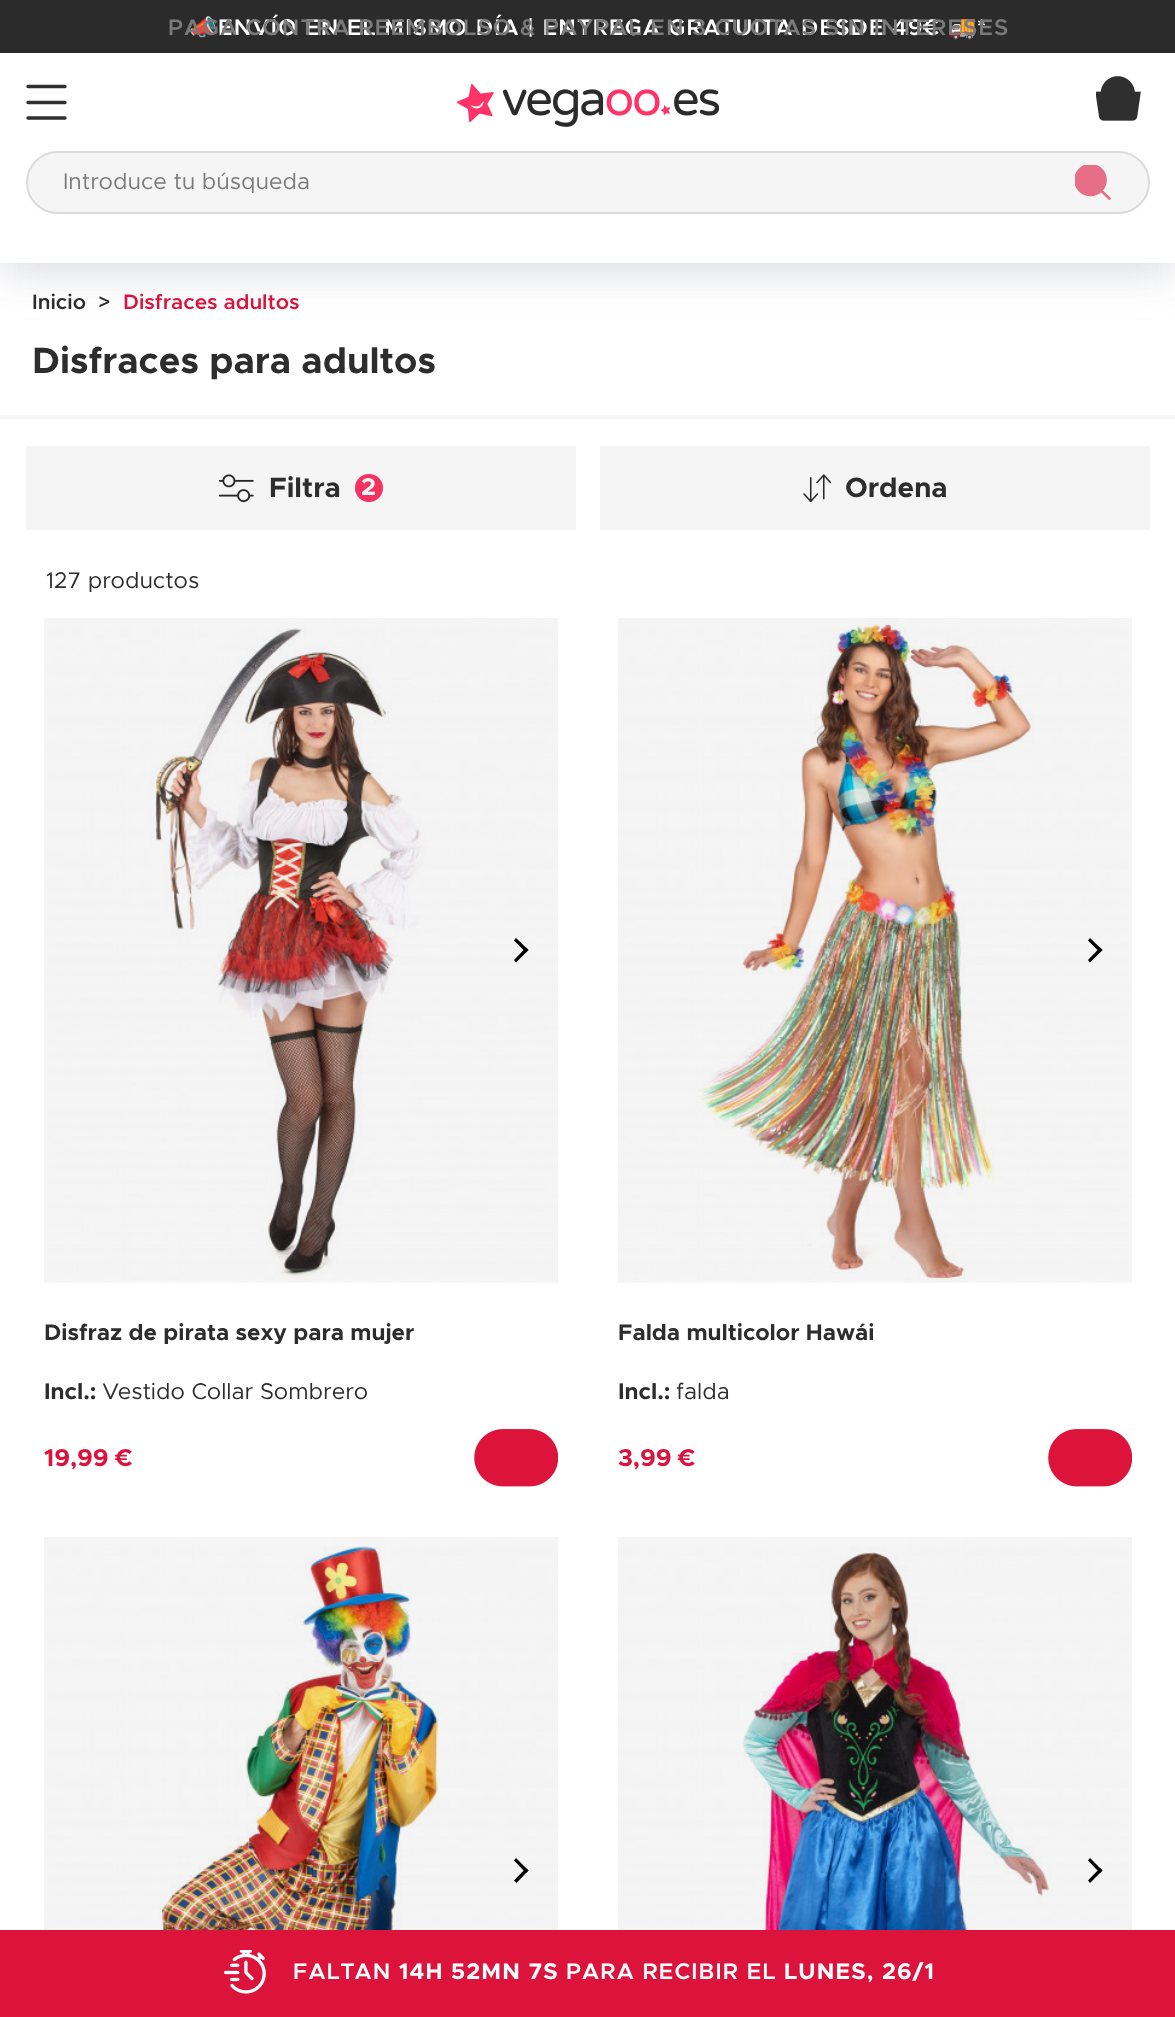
<svg xmlns="http://www.w3.org/2000/svg" width="1175" height="2017" viewBox="0 0 1175 2017">
  <defs>
    <clipPath id="clip1"><rect x="1075" y="165" width="40" height="39"/></clipPath>
  </defs>
  <rect width="100%" height="100%" fill="rgb(255,255,255)"/>
  <rect x="0" y="14" width="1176" height="247" fill="rgba(149,157,165,0.2)" filter="blur(21px)"/>
  <rect x="0" y="14" width="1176" height="263" fill="rgba(149,157,165,0.2)" filter="blur(21px)"/>
  <rect x="0" y="53" width="1175" height="210" fill="rgb(255,255,255)"/>
  <rect x="0" y="0" width="1175" height="53" fill="rgb(43,43,43)"/>
  <text x="189" y="35" font-family="Noto Color Emoji" font-size="22.75" font-weight="bold" letter-spacing="1.15" fill="rgb(255,255,255)">📣</text>
  <text x="218" y="35" font-family="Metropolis" font-size="22.75" font-weight="600" letter-spacing="1.15" fill="rgb(255,255,255)">ENVÍO EN EL MISMO DÍA | ENTREGA GRATUITA DESDE 49€</text>
  <text x="948" y="35" font-family="Noto Color Emoji" font-size="22.75" font-weight="bold" letter-spacing="1.15" fill="rgb(255,255,255)">🚚</text>
  <text x="977" y="35" font-family="Metropolis" font-size="22.75" font-weight="600" letter-spacing="1.15" fill="rgb(255,255,255)">*</text>
  <text x="168" y="35" font-family="Metropolis" font-size="22.75" font-weight="600" letter-spacing="1.15" fill="rgb(122,122,122)">PAGA CONTRA REEMBOLSO &amp; PAYPAL EN 3 CUOTAS SIN INTERESES</text>
  <path d="M28 86.5H65M28 102.5H65M28 118H65" fill="none" stroke="rgb(47,47,47)" stroke-width="3.4" stroke-linecap="round" stroke-linejoin="round"/>
  <image x="457" y="84" width="262" height="43" href="pic1.png"/>
  <image x="1096" y="76" width="45" height="45" href="pic2.png"/>
  <rect x="27" y="152" width="1122" height="61" rx="30.5" fill="rgb(245,245,245)" stroke="rgb(219,219,219)" stroke-width="2"/>
  <text x="63" y="189" font-family="Metropolis" font-size="22.75" fill="rgb(122,122,122)">Introduce tu búsqueda</text>
  <circle cx="1090.5" cy="180" r="15" fill="rgb(230,110,134)"/>
  <g clip-path="url(#clip1)">
    <circle cx="1090.5" cy="180" r="15" fill="none" stroke="rgb(230,110,134)" stroke-width="2.7"/>
  </g>
  <path d="M1109.5 198.5L1101 190.5" fill="none" stroke="rgb(230,110,134)" stroke-width="2.7" stroke-linecap="round" stroke-linejoin="round"/>
  <g font-family="Metropolis" font-size="21" font-weight="600" fill="rgb(45,45,45)">
    <text x="32" y="309">Inicio</text>
    <text x="98" y="309">&gt;</text>
  </g>
  <text x="123" y="309" font-family="Metropolis" font-size="21" font-weight="600" fill="rgb(220,20,60)">Disfraces adultos</text>
  <text x="32" y="373" font-family="Metropolis" font-size="36.75" font-weight="bold" fill="rgb(45,45,45)">Disfraces para adultos</text>
  <rect x="0" y="415" width="1175" height="4" fill="rgb(245,245,245)"/>
  <rect x="26" y="446" width="550" height="84" fill="rgb(245,245,245)"/>
  <image x="219" y="474" width="35" height="29" href="pic3.png"/>
  <text x="269" y="497" font-family="Metropolis" font-size="28" font-weight="bold" fill="rgb(45,45,45)">Filtra</text>
  <circle cx="369" cy="488" r="14" fill="rgb(245,49,98)"/>
  <text x="361" y="495" font-family="Metropolis" font-size="24.5" font-weight="bold" fill="rgb(245,245,245)">2</text>
  <rect x="600" y="446" width="550" height="84" fill="rgb(245,245,245)"/>
  <image x="803" y="474" width="28" height="28" href="pic4.png"/>
  <text x="845" y="497" font-family="Metropolis" font-size="28" font-weight="bold" fill="rgb(45,45,45)">Ordena</text>
  <text x="46" y="588" font-family="Metropolis" font-size="22.75" fill="rgb(45,45,45)">127 productos</text>
  <image x="44" y="618" width="514" height="665" href="pic5.png"/>
  <path d="M516 938L528.5 950L526 952.5L514 940.5Z" fill="rgb(0,0,0)"/>
  <path d="M526 947.5L528.5 950L516 962.5L514 960Z" fill="rgb(0,0,0)"/>
  <g font-family="Metropolis" font-size="22.75" font-weight="bold" fill="rgb(45,45,45)">
    <text x="44" y="1340">Disfraz de pirata sexy para mujer</text>
    <text x="44" y="1399">Incl.:</text>
  </g>
  <text x="102" y="1399" font-family="Metropolis" font-size="22.75" fill="rgb(45,45,45)">Vestido Collar Sombrero</text>
  <text x="44" y="1466" font-family="Metropolis" font-size="24.5" font-weight="bold" fill="rgb(220,20,60)">19,99 €</text>
  <image x="474" y="1429" width="84" height="58" href="pic6.png"/>
  <image x="618" y="618" width="514" height="665" href="pic7.png"/>
  <path d="M1090 938L1102.5 950L1100 952.5L1088 940.5Z" fill="rgb(0,0,0)"/>
  <path d="M1100 947.5L1102.5 950L1090 962.5L1088 960Z" fill="rgb(0,0,0)"/>
  <g font-family="Metropolis" font-size="22.75" font-weight="bold" fill="rgb(45,45,45)">
    <text x="618" y="1340">Falda multicolor Hawái</text>
    <text x="618" y="1399">Incl.:</text>
  </g>
  <text x="676" y="1399" font-family="Metropolis" font-size="22.75" fill="rgb(45,45,45)">falda</text>
  <text x="618" y="1466" font-family="Metropolis" font-size="24.5" font-weight="bold" fill="rgb(220,20,60)">3,99 €</text>
  <image x="1048" y="1429" width="84" height="58" href="pic6.png"/>
  <image x="44" y="1537" width="514" height="393" href="pic8.png"/>
  <path d="M516 1858L528.5 1870.5L526 1873L514 1860.5Z" fill="rgb(0,0,0)"/>
  <path d="M526 1868L528.5 1870.5L516.5 1883L514 1880.5Z" fill="rgb(0,0,0)"/>
  <image x="618" y="1537" width="514" height="393" href="pic9.png"/>
  <path d="M1090 1858L1102.5 1870.5L1100 1873L1088 1860.5Z" fill="rgb(0,0,0)"/>
  <path d="M1100 1868L1102.5 1870.5L1090 1883L1088 1880.5Z" fill="rgb(0,0,0)"/>
  <rect x="0" y="1930" width="1175" height="87" fill="rgb(220,20,60)"/>
  <image x="224" y="1950" width="42" height="44" href="pic10.png"/>
  <text x="293" y="1979" font-family="Metropolis" font-size="22.75" font-weight="600" letter-spacing="1.15" fill="rgb(255,255,255)">FALTAN</text>
  <text x="399" y="1979" font-family="Metropolis" font-size="22.75" font-weight="bold" letter-spacing="1.15" fill="rgb(255,255,255)">14H 52MN 7S</text>
  <text x="566" y="1979" font-family="Metropolis" font-size="22.75" font-weight="600" letter-spacing="1.15" fill="rgb(255,255,255)">PARA RECIBIR EL</text>
  <text x="784" y="1979" font-family="Metropolis" font-size="22.75" font-weight="bold" letter-spacing="1.15" fill="rgb(255,255,255)">LUNES, 26/1</text>
</svg>
